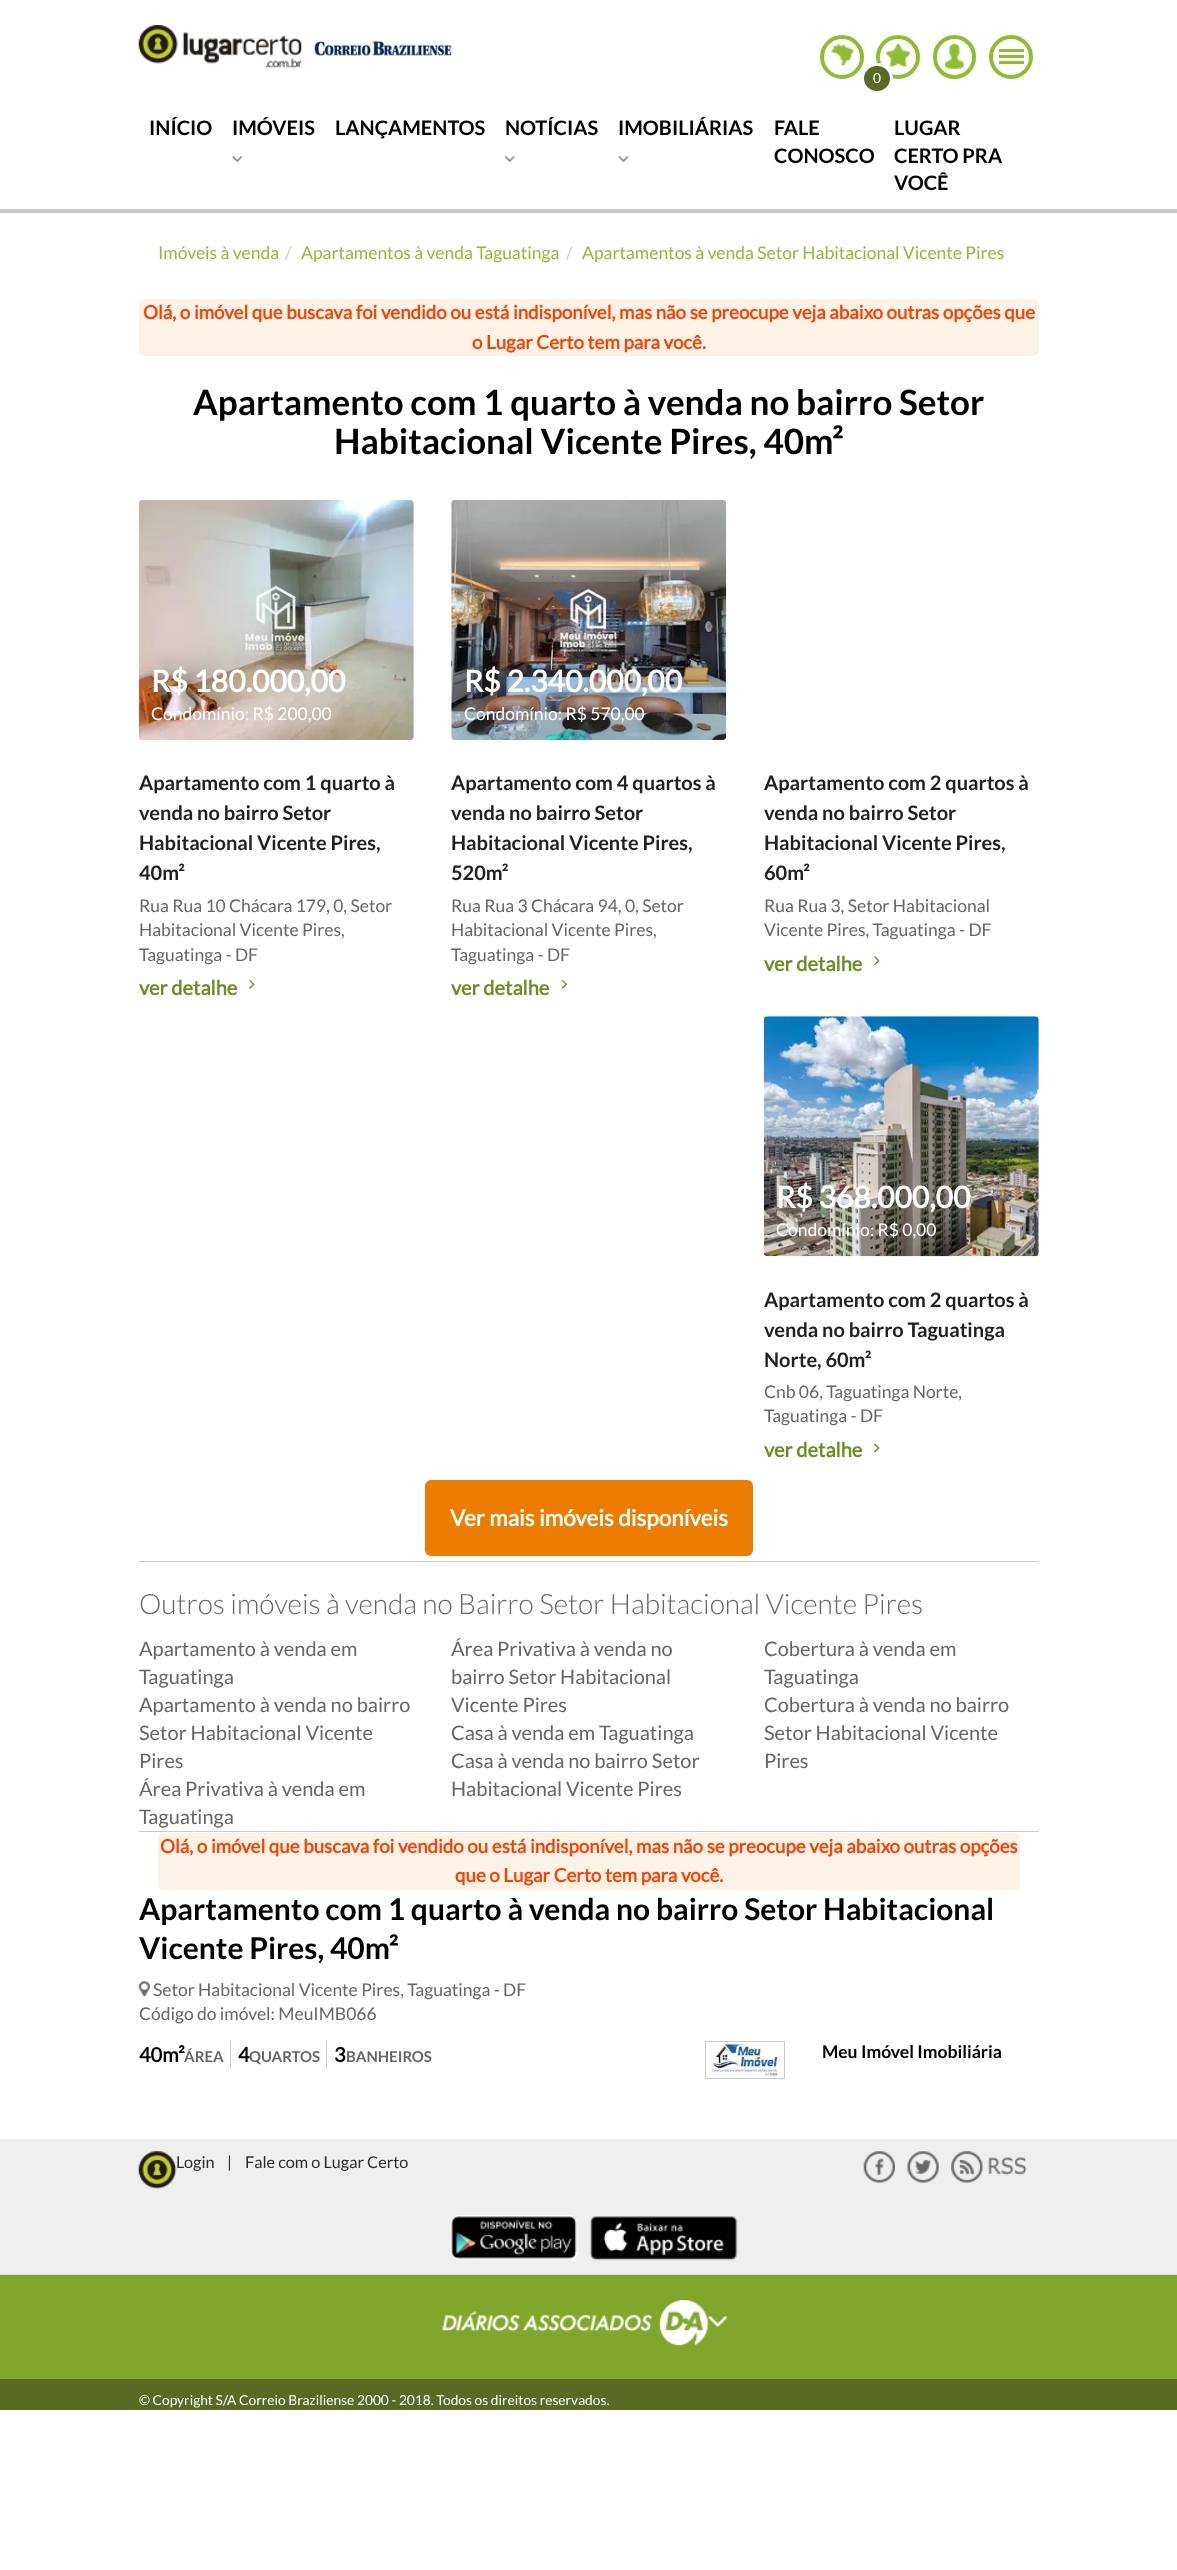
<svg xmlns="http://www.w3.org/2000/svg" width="1177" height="2570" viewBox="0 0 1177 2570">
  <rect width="100%" height="100%" fill="rgb(255,255,255)"/>
  <image x="138" y="25" width="164" height="43" href="pic1.png"/>
  <image x="314" y="41" width="138" height="16" href="pic2.png"/>
  <circle cx="842" cy="57" r="20" fill="none" stroke="rgb(144,188,49)" stroke-width="4"/>
  <image x="831" y="43" width="23" height="24" href="pic3.png"/>
  <circle cx="898" cy="57" r="20" fill="none" stroke="rgb(144,188,49)" stroke-width="4"/>
  <image x="886" y="43" width="25" height="25" href="pic4.png"/>
  <rect x="862.5" y="64.5" width="29" height="28" rx="14" fill="rgb(88,106,35)" stroke="rgb(255,255,255)" stroke-width="3"/>
  <text x="873" y="83" font-family="Lato" font-size="13.75" fill="rgb(255,255,255)">0</text>
  <rect x="935" y="37" width="39" height="40" rx="19.5" fill="none" stroke="rgb(144,188,49)" stroke-width="4"/>
  <image x="945" y="43" width="19" height="26" href="pic5.png"/>
  <circle cx="1011" cy="57" r="20" fill="none" stroke="rgb(144,188,49)" stroke-width="4"/>
  <rect x="999" y="49" width="25" height="3" fill="rgb(144,188,49)"/>
  <rect x="999" y="55" width="25" height="3" fill="rgb(144,188,49)"/>
  <rect x="999" y="61" width="25" height="3" fill="rgb(144,188,49)"/>
  <rect x="0" y="209" width="1177" height="4" fill="rgb(204,204,204)"/>
  <g font-family="'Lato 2'" font-size="20" font-weight="bold" fill="rgb(0,0,0)">
    <text x="149" y="135">INÍCIO</text>
    <text x="232" y="135">IMÓVEIS</text>
  </g>
  <image x="232" y="156" width="11" height="7" href="pic6.png"/>
  <g font-family="'Lato 2'" font-size="20" font-weight="bold" fill="rgb(0,0,0)">
    <text x="335" y="135">LANÇAMENTOS</text>
    <text x="505" y="135">NOTÍCIAS</text>
  </g>
  <image x="505" y="156" width="10" height="7" href="pic7.png"/>
  <text x="618" y="135" font-family="'Lato 2'" font-size="20" font-weight="bold" fill="rgb(0,0,0)">IMOBILIÁRIAS</text>
  <image x="618" y="156" width="11" height="7" href="pic8.png"/>
  <g font-family="'Lato 2'" font-size="20" font-weight="bold" fill="rgb(0,0,0)">
    <text>
      <tspan x="774" y="135">FALE</tspan>
      <tspan x="774" y="163">CONOSCO</tspan>
    </text>
    <text>
      <tspan x="894" y="135">LUGAR</tspan>
      <tspan x="894" y="163">CERTO PRA</tspan>
      <tspan x="894" y="190">VOCÊ</tspan>
    </text>
  </g>
  <text x="158" y="259" font-family="Lato" font-size="17.5" fill="rgb(144,188,49)">Imóveis à venda</text>
  <text x="285" y="259" font-family="Lato" font-size="17.5" fill="rgb(204,204,204)">/</text>
  <text x="301" y="259" font-family="Lato" font-size="17.5" fill="rgb(144,188,49)">Apartamentos à venda Taguatinga</text>
  <text x="566" y="259" font-family="Lato" font-size="17.5" fill="rgb(204,204,204)">/</text>
  <text x="582" y="259" font-family="Lato" font-size="17.5" fill="rgb(144,188,49)">Apartamentos à venda Setor Habitacional Vicente Pires</text>
  <rect x="139" y="299" width="900" height="57" rx="6" fill="rgb(253,242,230)"/>
  <g font-family="Lato" font-size="18.75" font-weight="bold" fill="rgb(255,63,0)">
    <text x="143" y="319">Olá, o imóvel que buscava foi vendido ou está indisponível, mas não se preocupe veja abaixo outras opções que</text>
    <text x="472" y="349">o Lugar Certo tem para você.</text>
  </g>
  <g font-family="'Lato 2'" font-size="35" font-weight="bold" fill="rgb(0,0,0)">
    <text x="193" y="415">Apartamento com 1 quarto à venda no bairro Setor</text>
    <text x="334" y="454">Habitacional Vicente Pires, 40m²</text>
  </g>
  <image x="138" y="500" width="276" height="240" href="pic9.png"/>
  <text x="151" y="692" font-family="Lato" font-size="30" font-weight="bold" fill="rgb(255,255,255)">R$ 180.000,00</text>
  <text x="151" y="720" font-family="Lato" font-size="17.5" fill="rgb(255,255,255)">Condomínio: R$ 200,00</text>
  <g font-family="'Lato 2'" font-size="20" font-weight="bold" fill="rgb(33,33,33)">
    <text>
      <tspan x="139" y="790">Apartamento com 1 quarto à</tspan>
      <tspan x="139" y="820">venda no bairro Setor</tspan>
      <tspan x="139" y="850">Habitacional Vicente Pires,</tspan>
      <tspan x="139" y="880">40m²</tspan>
    </text>
  </g>
  <g font-family="Lato" font-size="17.5" fill="rgb(102,102,102)">
    <text>
      <tspan x="139" y="912">Rua Rua 10 Chácara 179, 0, Setor</tspan>
      <tspan x="139" y="936">Habitacional Vicente Pires,</tspan>
      <tspan x="139" y="961">Taguatinga - DF</tspan>
    </text>
  </g>
  <text x="139" y="995" font-family="Lato" font-size="20" font-weight="bold" fill="rgb(106,143,33)">ver detalhe</text>
  <path d="M254.5 984L253.5 985L249 980.5L250 980Z" fill="rgb(106,143,33)"/>
  <path d="M253.5 983.5L254.5 984.5L250 989L249 988Z" fill="rgb(106,143,33)"/>
  <image x="451" y="500" width="276" height="240" href="pic10.png"/>
  <text x="464" y="692" font-family="Lato" font-size="30" font-weight="bold" fill="rgb(255,255,255)">R$ 2.340.000,00</text>
  <text x="464" y="720" font-family="Lato" font-size="17.5" fill="rgb(255,255,255)">Condomínio: R$ 570,00</text>
  <g font-family="'Lato 2'" font-size="20" font-weight="bold" fill="rgb(33,33,33)">
    <text>
      <tspan x="451" y="790">Apartamento com 4 quartos à</tspan>
      <tspan x="451" y="820">venda no bairro Setor</tspan>
      <tspan x="451" y="850">Habitacional Vicente Pires,</tspan>
      <tspan x="451" y="880">520m²</tspan>
    </text>
  </g>
  <g font-family="Lato" font-size="17.5" fill="rgb(102,102,102)">
    <text>
      <tspan x="451" y="912">Rua Rua 3 Chácara 94, 0, Setor</tspan>
      <tspan x="451" y="936">Habitacional Vicente Pires,</tspan>
      <tspan x="451" y="961">Taguatinga - DF</tspan>
    </text>
  </g>
  <text x="451" y="995" font-family="Lato" font-size="20" font-weight="bold" fill="rgb(106,143,33)">ver detalhe</text>
  <path d="M567 984L566 985L561.5 980.5L562.5 980Z" fill="rgb(106,143,33)"/>
  <path d="M566 983.5L567 984.5L562.5 989L561.5 988Z" fill="rgb(106,143,33)"/>
  <g font-family="'Lato 2'" font-size="20" font-weight="bold" fill="rgb(33,33,33)">
    <text>
      <tspan x="764" y="790">Apartamento com 2 quartos à</tspan>
      <tspan x="764" y="820">venda no bairro Setor</tspan>
      <tspan x="764" y="850">Habitacional Vicente Pires,</tspan>
      <tspan x="764" y="880">60m²</tspan>
    </text>
  </g>
  <g font-family="Lato" font-size="17.5" fill="rgb(102,102,102)">
    <text>
      <tspan x="764" y="912">Rua Rua 3, Setor Habitacional</tspan>
      <tspan x="764" y="936">Vicente Pires, Taguatinga - DF</tspan>
    </text>
  </g>
  <text x="764" y="971" font-family="Lato" font-size="20" font-weight="bold" fill="rgb(106,143,33)">ver detalhe</text>
  <path d="M879.5 960.5L878.5 961.5L874 957L875 956Z" fill="rgb(106,143,33)"/>
  <path d="M878.5 960L879.5 961L875 965L874 964.5Z" fill="rgb(106,143,33)"/>
  <image x="763" y="1016" width="276" height="241" href="pic11.png"/>
  <text x="776" y="1208" font-family="Lato" font-size="30" font-weight="bold" fill="rgb(255,255,255)">R$ 368.000,00</text>
  <text x="776" y="1236" font-family="Lato" font-size="17.5" fill="rgb(255,255,255)">Condomínio: R$ 0,00</text>
  <g font-family="'Lato 2'" font-size="20" font-weight="bold" fill="rgb(33,33,33)">
    <text>
      <tspan x="764" y="1307">Apartamento com 2 quartos à</tspan>
      <tspan x="764" y="1337">venda no bairro Taguatinga</tspan>
      <tspan x="764" y="1367">Norte, 60m²</tspan>
    </text>
  </g>
  <g font-family="Lato" font-size="17.5" fill="rgb(102,102,102)">
    <text>
      <tspan x="764" y="1398">Cnb 06, Taguatinga Norte,</tspan>
      <tspan x="764" y="1422">Taguatinga - DF</tspan>
    </text>
  </g>
  <text x="764" y="1457" font-family="Lato" font-size="20" font-weight="bold" fill="rgb(106,143,33)">ver detalhe</text>
  <path d="M879.5 1448L878.5 1449L874 1444.5L875 1443.5Z" fill="rgb(106,143,33)"/>
  <path d="M878.5 1447L879.5 1448L875 1452.5L874 1451.5Z" fill="rgb(106,143,33)"/>
  <rect x="425" y="1480" width="328" height="76" rx="6" fill="rgb(237,125,0)"/>
  <text x="450" y="1526" font-family="Lato" font-size="22.5" font-weight="bold" fill="rgb(255,255,255)">Ver mais imóveis disponíveis</text>
  <image x="138" y="1534" width="1" height="2" href="pic12.png"/>
  <rect x="139" y="1561" width="900" height="1" fill="rgb(204,204,204)"/>
  <text x="139" y="1614" font-family="Lato" font-size="28.05" font-weight="300" fill="rgb(102,102,102)">Outros imóveis à venda no Bairro Setor Habitacional Vicente Pires</text>
  <g font-family="Lato" font-size="20" fill="rgb(102,102,102)">
    <text>
      <tspan x="139" y="1656">Apartamento à venda em</tspan>
      <tspan x="139" y="1684">Taguatinga</tspan>
      <tspan x="139" y="1712">Apartamento à venda no bairro</tspan>
      <tspan x="139" y="1740">Setor Habitacional Vicente</tspan>
      <tspan x="139" y="1768">Pires</tspan>
      <tspan x="139" y="1796">Área Privativa à venda em</tspan>
      <tspan x="139" y="1824">Taguatinga</tspan>
    </text>
    <text>
      <tspan x="451" y="1656">Área Privativa à venda no</tspan>
      <tspan x="451" y="1684">bairro Setor Habitacional</tspan>
      <tspan x="451" y="1712">Vicente Pires</tspan>
      <tspan x="451" y="1740">Casa à venda em Taguatinga</tspan>
      <tspan x="451" y="1768">Casa à venda no bairro Setor</tspan>
      <tspan x="451" y="1796">Habitacional Vicente Pires</tspan>
    </text>
    <text>
      <tspan x="764" y="1656">Cobertura à venda em</tspan>
      <tspan x="764" y="1684">Taguatinga</tspan>
      <tspan x="764" y="1712">Cobertura à venda no bairro</tspan>
      <tspan x="764" y="1740">Setor Habitacional Vicente</tspan>
      <tspan x="764" y="1768">Pires</tspan>
    </text>
  </g>
  <rect x="139" y="1831" width="900" height="1" fill="rgb(204,204,204)"/>
  <rect x="158" y="1833" width="862" height="57" rx="6" fill="rgb(253,242,230)"/>
  <g font-family="Lato" font-size="18.75" font-weight="bold" fill="rgb(255,63,0)">
    <text x="160" y="1853">Olá, o imóvel que buscava foi vendido ou está indisponível, mas não se preocupe veja abaixo outras opções</text>
    <text x="455" y="1882">que o Lugar Certo tem para você.</text>
  </g>
  <g font-family="'Lato 2'" font-size="30" font-weight="bold" fill="rgb(0,0,0)">
    <text>
      <tspan x="139" y="1920">Apartamento com 1 quarto à venda no bairro Setor Habitacional</tspan>
      <tspan x="139" y="1959">Vicente Pires, 40m²</tspan>
    </text>
  </g>
  <image x="138" y="1981" width="12" height="16" href="pic13.png"/>
  <g font-family="Lato" font-size="17.5" fill="rgb(102,102,102)">
    <text x="153" y="1996">Setor Habitacional Vicente Pires, Taguatinga - DF</text>
    <text x="139" y="2020">Código do imóvel: MeuIMB066</text>
  </g>
  <text x="139" y="2062" font-family="Lato" font-size="20" font-weight="bold" fill="rgb(0,0,0)">40m²</text>
  <text x="184" y="2062" font-family="'Lato 2'" font-size="15" font-weight="bold" fill="rgb(102,102,102)">ÁREA</text>
  <rect x="230" y="2041" width="1" height="28" fill="rgb(204,204,204)"/>
  <text x="238" y="2062" font-family="Lato" font-size="20" font-weight="bold" fill="rgb(0,0,0)">4</text>
  <text x="249" y="2062" font-family="'Lato 2'" font-size="15" font-weight="bold" fill="rgb(102,102,102)">QUARTOS</text>
  <rect x="326" y="2041" width="1" height="28" fill="rgb(204,204,204)"/>
  <text x="334" y="2062" font-family="Lato" font-size="20" font-weight="bold" fill="rgb(0,0,0)">3</text>
  <text x="346" y="2062" font-family="'Lato 2'" font-size="15" font-weight="bold" fill="rgb(102,102,102)">BANHEIROS</text>
  <rect x="705.5" y="2041.5" width="79" height="37" fill="none" stroke="rgb(204,204,204)"/>
  <image x="711" y="2042" width="72" height="35" href="pic14.png"/>
  <text x="822" y="2058" font-family="'Lato 2'" font-size="17.5" font-weight="bold" fill="rgb(0,0,0)">Meu Imóvel Imobiliária</text>
  <rect x="0" y="2139" width="1177" height="135" fill="rgb(239,239,239)"/>
  <image x="138" y="2151" width="39" height="38" href="pic15.png"/>
  <g font-family="Lato" font-size="16.25" fill="rgb(42,44,48)">
    <text x="176" y="2168">Login</text>
    <text x="227" y="2168">|</text>
    <text x="245" y="2168">Fale com o Lugar Certo</text>
  </g>
  <image x="863" y="2151" width="32" height="32" href="pic16.png"/>
  <image x="907" y="2151" width="32" height="32" href="pic17.png"/>
  <image x="951" y="2151" width="76" height="32" href="pic18.png"/>
  <image x="450" y="2215" width="128" height="45" href="pic19.png"/>
  <image x="590" y="2216" width="148" height="45" href="pic20.png"/>
  <rect x="0" y="2275" width="1177" height="104" fill="rgb(128,167,43)"/>
  <rect x="0" y="2274" width="1177" height="1" fill="rgb(220,220,220)"/>
  <image x="442" y="2300" width="267" height="46" href="pic21.png"/>
  <image x="708" y="2316" width="20" height="12" href="pic22.png"/>
  <rect x="0" y="2379" width="1177" height="31" fill="rgb(88,106,35)"/>
  <text x="139" y="2405" font-family="Lato" font-size="13.75" fill="rgb(255,255,255)">© Copyright S/A Correio Braziliense 2000 - 2018. Todos os direitos reservados.</text>
</svg>
